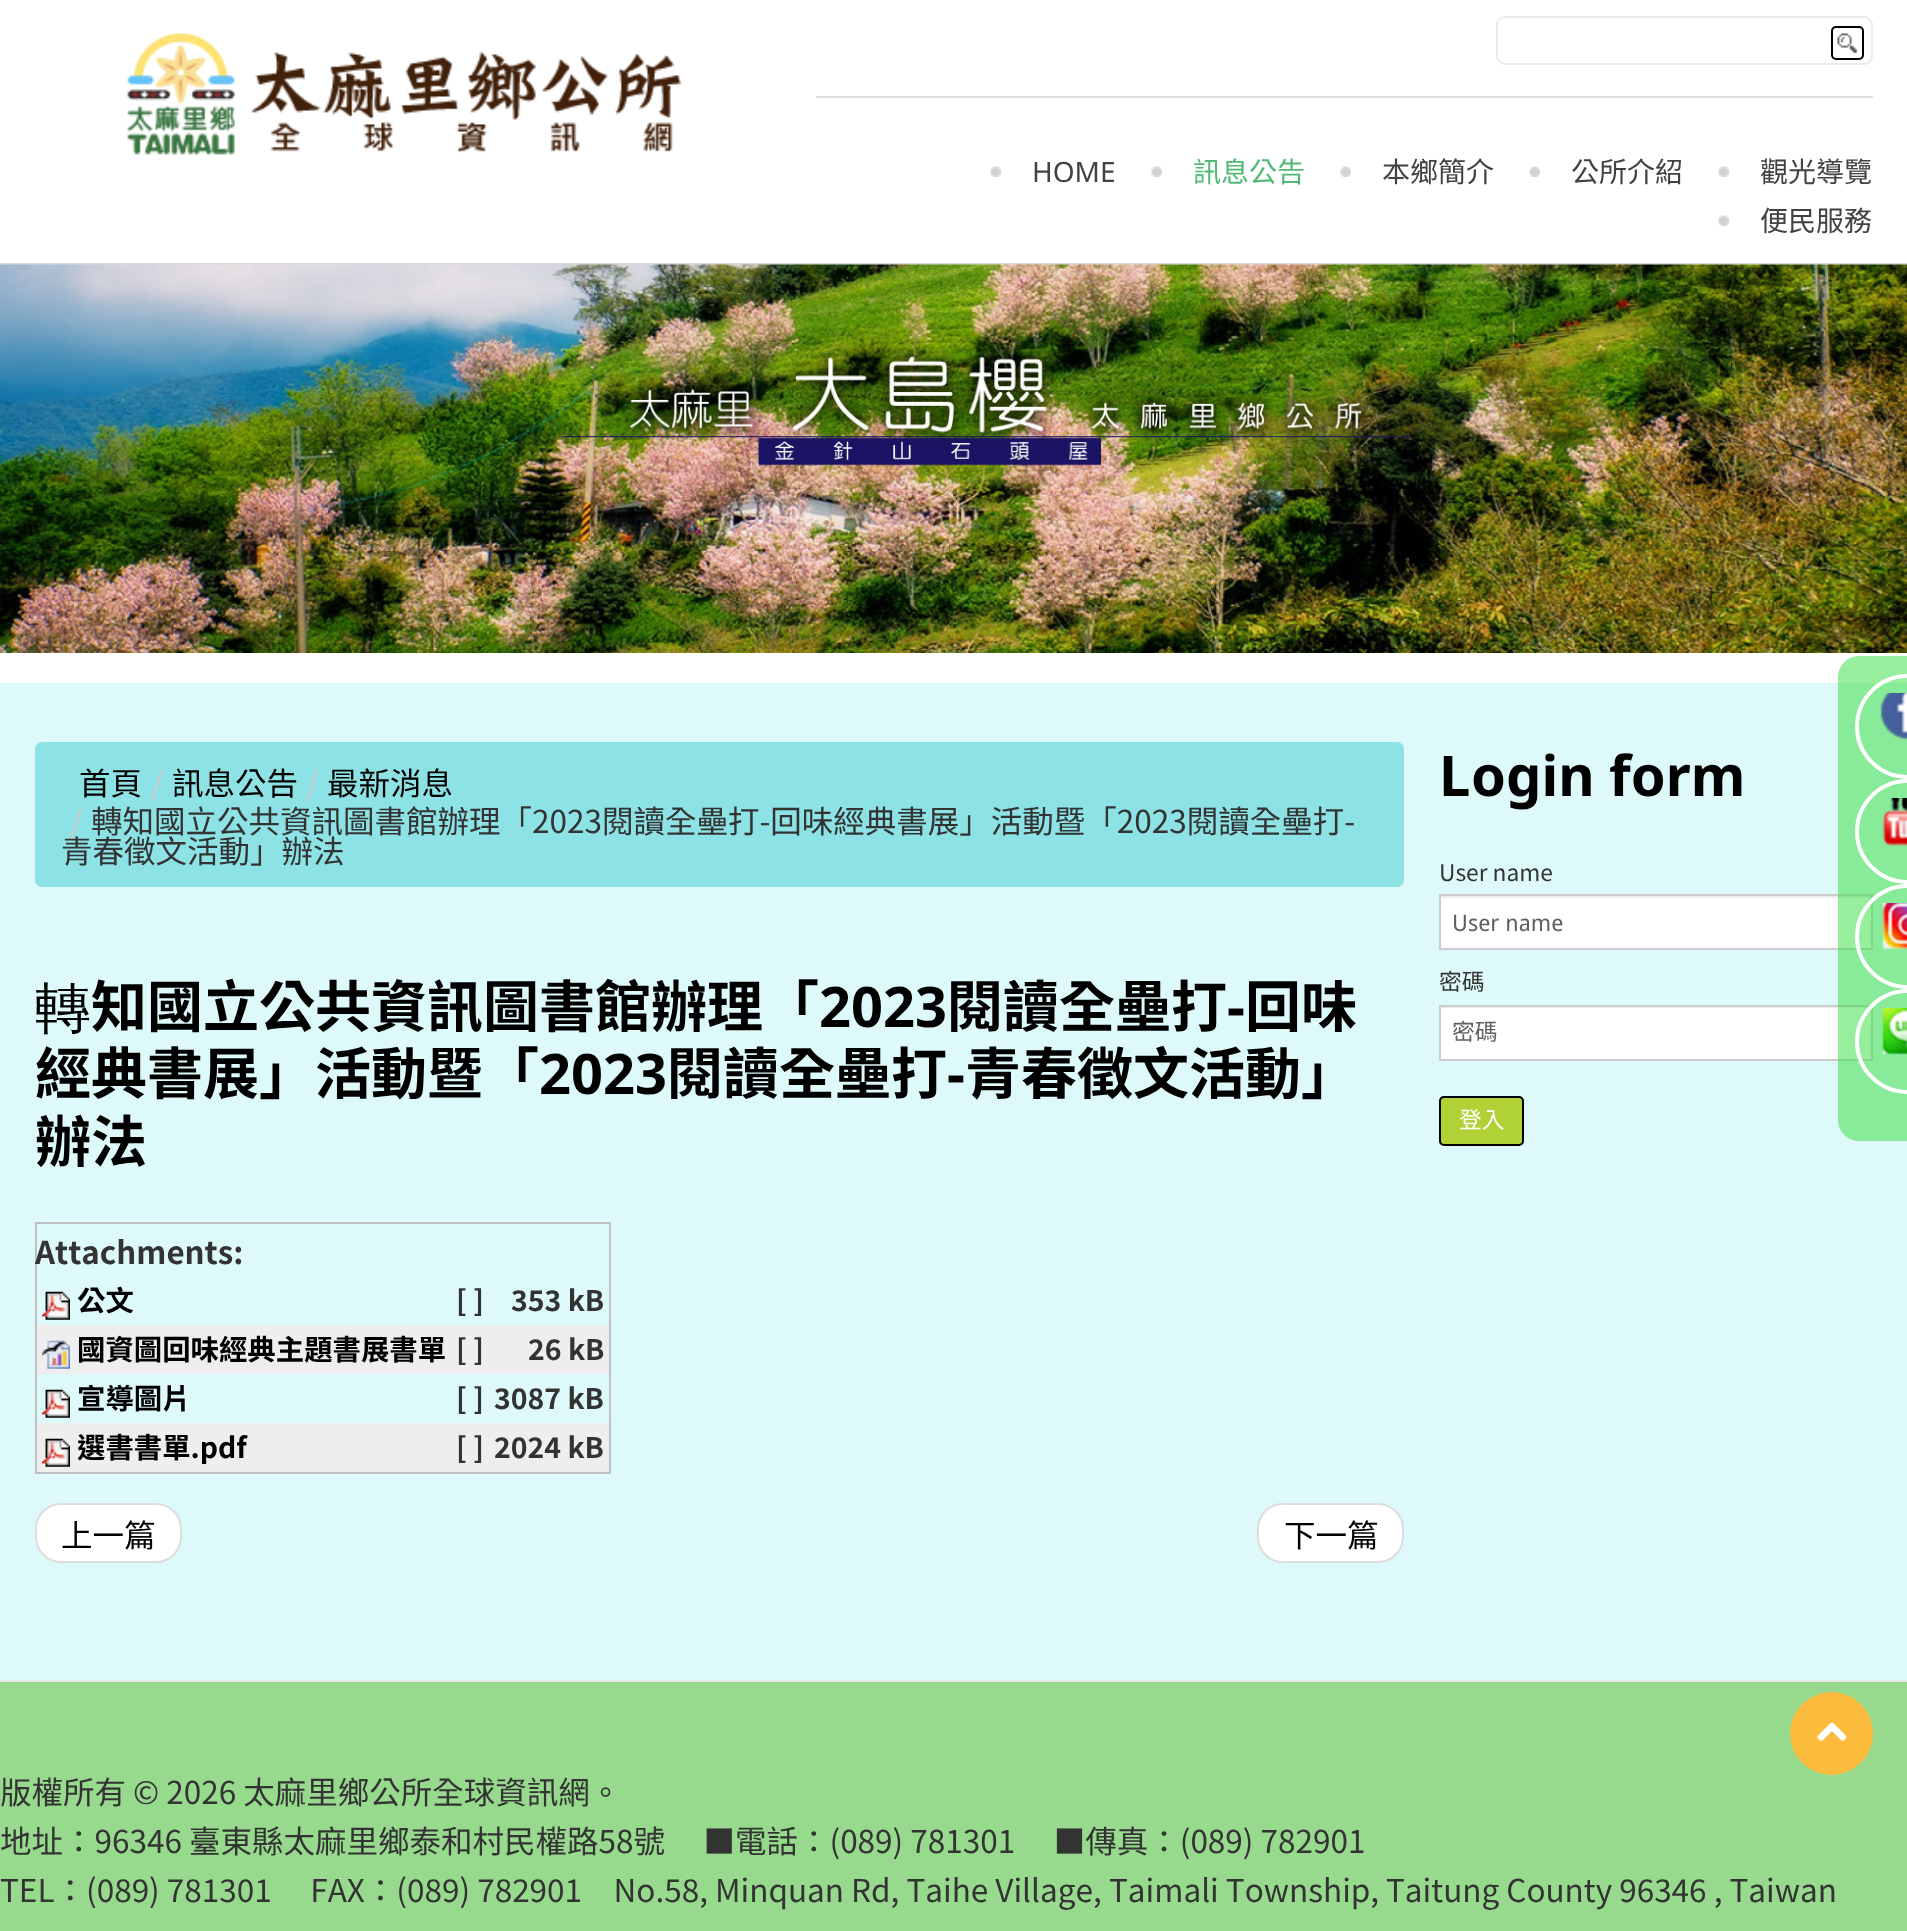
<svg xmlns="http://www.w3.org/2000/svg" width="1907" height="1931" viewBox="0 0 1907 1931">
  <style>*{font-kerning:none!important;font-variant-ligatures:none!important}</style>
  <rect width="100%" height="100%" fill="rgb(151,218,141)"/>
  <rect x="0" y="0" width="1907" height="683" fill="rgb(255,255,255)"/>
  <rect x="0" y="263" width="1907" height="2" fill="rgb(218,218,218)"/>
  <image x="127" y="33" width="555" height="122" href="pic1.png"/>
  <rect x="1497" y="17" width="375" height="47" rx="8" fill="none" stroke="rgb(235,235,235)" stroke-width="2"/>
  <image x="1837" y="33" width="20" height="20" href="pic2.png"/>
  <rect x="1832" y="27" width="31" height="32" rx="4" fill="none" stroke="rgb(0,0,0)" stroke-width="2"/>
  <rect x="816" y="96" width="1057" height="2" fill="rgb(224,224,224)"/>
  <image x="990" y="166" width="11" height="11" href="pic3.png"/>
  <text x="1032" y="182" font-family="Noto Sans" font-size="28" fill="rgb(64,67,64)">HOME</text>
  <image x="1151" y="166" width="11" height="11" href="pic3.png"/>
  <text x="1193" y="182" font-family="Noto Sans TC" font-size="28" fill="rgb(82,184,118)">訊息公告</text>
  <image x="1340" y="166" width="11" height="11" href="pic3.png"/>
  <text x="1382" y="182" font-family="Noto Sans TC" font-size="28" fill="rgb(64,67,64)">本鄉簡介</text>
  <image x="1529" y="166" width="11" height="11" href="pic4.png"/>
  <text x="1571" y="182" font-family="Noto Sans TC" font-size="28" fill="rgb(64,67,64)">公所介紹</text>
  <image x="1718" y="166" width="11" height="11" href="pic4.png"/>
  <text x="1760" y="182" font-family="Noto Sans TC" font-size="28" fill="rgb(64,67,64)">觀光導覽</text>
  <image x="1718" y="215" width="11" height="11" href="pic5.png"/>
  <text x="1760" y="231" font-family="Noto Sans TC" font-size="28" fill="rgb(64,67,64)">便民服務</text>
  <image x="0" y="264" width="1907" height="389" href="pic6.png"/>
  <rect x="0" y="683" width="1907" height="997" fill="rgb(222,249,249)"/>
  <rect x="35" y="742" width="1369" height="145" rx="7" fill="rgb(140,226,228)"/>
  <text x="79" y="795" font-family="Noto Sans TC" font-size="31.5" fill="rgb(0,0,0)">首頁</text>
  <text x="151" y="795" font-family="Noto Sans TC" font-size="31.5" fill="rgb(204,204,204)">/</text>
  <text x="172" y="795" font-family="Noto Sans TC" font-size="31.5" fill="rgb(0,0,0)">訊息公告</text>
  <text x="306" y="795" font-family="Noto Sans TC" font-size="31.5" fill="rgb(204,204,204)">/</text>
  <text x="327" y="795" font-family="Noto Sans TC" font-size="31.5" fill="rgb(0,0,0)">最新消息</text>
  <text x="70" y="833" font-family="Noto Sans TC" font-size="31.5" fill="rgb(204,204,204)">/</text>
  <g font-family="Noto Sans TC" font-size="31.5" fill="rgb(51,51,51)">
    <text x="91" y="833">轉知國立公共資訊圖書館辦理「2023閱讀全壘打-回味經典書展」活動暨「2023閱讀全壘打-</text>
    <text x="61" y="863">青春徵文活動」辦法</text>
  </g>
  <text x="35" y="1027" font-family="Noto Sans" font-size="56" font-weight="100" fill="rgb(0,0,0)">轉</text>
  <text x="91" y="1027" font-family="Noto Sans TC" font-size="56" font-weight="bold" fill="rgb(0,0,0)">知國立公共資訊圖書館辦理「</text>
  <text x="819" y="1027" font-family="Noto Sans" font-size="56" font-weight="bold" fill="rgb(0,0,0)">2023</text>
  <text x="947" y="1027" font-family="Noto Sans TC" font-size="56" font-weight="bold" fill="rgb(0,0,0)">閱讀全壘打</text>
  <text x="1227" y="1027" font-family="Noto Sans" font-size="56" font-weight="bold" fill="rgb(0,0,0)">-</text>
  <g font-family="Noto Sans TC" font-size="56" font-weight="bold" fill="rgb(0,0,0)">
    <text x="1245" y="1027">回味</text>
    <text x="35" y="1094">經典書展」活動暨「</text>
  </g>
  <text x="539" y="1094" font-family="Noto Sans" font-size="56" font-weight="bold" fill="rgb(0,0,0)">2023</text>
  <text x="667" y="1094" font-family="Noto Sans TC" font-size="56" font-weight="bold" fill="rgb(0,0,0)">閱讀全壘打</text>
  <text x="947" y="1094" font-family="Noto Sans" font-size="56" font-weight="bold" fill="rgb(0,0,0)">-</text>
  <g font-family="Noto Sans TC" font-size="56" font-weight="bold" fill="rgb(0,0,0)">
    <text x="965" y="1094">青春徵文活動」</text>
    <text x="35" y="1162">辦法</text>
  </g>
  <rect x="35" y="1222" width="576" height="2" fill="rgb(192,192,192)"/>
  <rect x="609" y="1222" width="2" height="252" fill="rgb(192,192,192)"/>
  <rect x="35" y="1472" width="576" height="2" fill="rgb(192,192,192)"/>
  <rect x="35" y="1222" width="2" height="252" fill="rgb(192,192,192)"/>
  <text x="35" y="1264" font-family="Noto Sans TC" font-size="31.25" font-weight="bold" fill="rgb(51,51,51)">Attachments:</text>
  <image x="42" y="1291" width="28" height="29" href="pic7.png"/>
  <text x="77" y="1311" font-family="Noto Sans TC" font-size="28.4" font-weight="bold" fill="rgb(0,0,0)">公文</text>
  <g font-family="Noto Sans TC" font-size="28.4" font-weight="bold" fill="rgb(51,51,51)">
    <text x="456" y="1311">[ ]</text>
    <text x="511" y="1311">353 kB</text>
  </g>
  <rect x="37" y="1325" width="572" height="49" fill="rgb(238,238,238)"/>
  <image x="42" y="1340" width="28" height="29" href="pic8.png"/>
  <text x="77" y="1360" font-family="Noto Sans TC" font-size="28.4" font-weight="bold" fill="rgb(0,0,0)">國資圖回味經典主題書展書單</text>
  <g font-family="Noto Sans TC" font-size="28.4" font-weight="bold" fill="rgb(51,51,51)">
    <text x="456" y="1360">[ ]</text>
    <text x="528" y="1360">26 kB</text>
  </g>
  <image x="42" y="1389" width="28" height="29" href="pic7.png"/>
  <text x="77" y="1409" font-family="Noto Sans TC" font-size="28.4" font-weight="bold" fill="rgb(0,0,0)">宣導圖片</text>
  <g font-family="Noto Sans TC" font-size="28.4" font-weight="bold" fill="rgb(51,51,51)">
    <text x="456" y="1409">[ ]</text>
    <text x="494" y="1409">3087 kB</text>
  </g>
  <rect x="37" y="1423" width="572" height="49" fill="rgb(238,238,238)"/>
  <image x="42" y="1438" width="28" height="29" href="pic9.png"/>
  <text x="77" y="1458" font-family="Noto Sans TC" font-size="28.4" font-weight="bold" fill="rgb(0,0,0)">選書書單.pdf</text>
  <g font-family="Noto Sans TC" font-size="28.4" font-weight="bold" fill="rgb(51,51,51)">
    <text x="456" y="1458">[ ]</text>
    <text x="494" y="1458">2024 kB</text>
  </g>
  <rect x="36" y="1504" width="145" height="58" rx="25" fill="rgb(255,255,255)" stroke="rgb(221,221,221)" stroke-width="2"/>
  <text x="61" y="1547" font-family="Noto Sans TC" font-size="31.5" fill="rgb(0,0,0)">上一篇</text>
  <rect x="1258" y="1504" width="145" height="58" rx="25" fill="rgb(255,255,255)" stroke="rgb(221,221,221)" stroke-width="2"/>
  <text x="1284" y="1547" font-family="Noto Sans TC" font-size="31.5" fill="rgb(0,0,0)">下一篇</text>
  <text x="1439" y="796" font-family="'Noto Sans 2'" font-size="56" font-weight="bold" fill="rgb(0,0,0)">L</text>
  <text x="1471" y="796" font-family="Noto Sans" font-size="56" font-weight="bold" fill="rgb(0,0,0)">ogin form</text>
  <text x="1439" y="881" font-family="Noto Sans TC" font-size="22.75" fill="rgb(51,51,51)">User name</text>
  <rect x="1441" y="898" width="430" height="50" fill="rgb(255,255,255)"/>
  <rect x="1440" y="896" width="431" height="2" fill="rgb(236,236,236)"/>
  <rect x="1440" y="895" width="432" height="54" fill="none" stroke="rgb(204,204,204)" stroke-width="2"/>
  <text x="1452" y="931" font-family="Droid Sans" font-size="22.75" fill="rgb(96,96,96)">User name</text>
  <text x="1439" y="990" font-family="Noto Sans TC" font-size="22.75" fill="rgb(51,51,51)">密碼</text>
  <rect x="1441" y="1008" width="430" height="51" fill="rgb(255,255,255)"/>
  <rect x="1440" y="1007" width="431" height="1" fill="rgb(236,236,236)"/>
  <rect x="1440" y="1006" width="432" height="54" fill="none" stroke="rgb(204,204,204)" stroke-width="2"/>
  <text x="1452" y="1040" font-family="Noto Sans CJK TC" font-size="22.75" fill="rgb(96,96,96)">密碼</text>
  <rect x="1440" y="1097" width="83" height="48" rx="4" fill="rgb(176,210,54)" stroke="rgb(0,0,0)" stroke-width="2"/>
  <text x="1459" y="1128" font-family="Noto Sans CJK TC" font-size="22.75" fill="rgb(255,255,255)">登入</text>
  <path d="M1859 656H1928V1141H1859C1847.5 1141 1838 1131.5 1838 1120V677C1838 665.5 1847.5 656 1859 656Z" fill="rgba(56,222,68,0.52)"/>
  <circle cx="1907.5" cy="726.5" r="50.5" fill="none" stroke="rgb(255,255,255)" stroke-width="4"/>
  <image x="1880" y="693" width="27" height="47" href="pic10.png"/>
  <circle cx="1907.5" cy="831.5" r="50.5" fill="none" stroke="rgb(255,255,255)" stroke-width="4"/>
  <image x="1882" y="798" width="25" height="48" href="pic11.png"/>
  <circle cx="1907.5" cy="936.5" r="50.5" fill="none" stroke="rgb(255,255,255)" stroke-width="4"/>
  <image x="1882" y="903" width="25" height="47" href="pic12.png"/>
  <circle cx="1907.5" cy="1041.5" r="50.5" fill="none" stroke="rgb(255,255,255)" stroke-width="4"/>
  <image x="1882" y="1008" width="25" height="47" href="pic13.png"/>
  <circle cx="1831.5" cy="1733.5" r="41.5" fill="rgb(251,188,62)"/>
  <image x="1817" y="1722" width="30" height="19" href="pic14.png"/>
  <rect x="0" y="1680" width="1907" height="2" fill="rgb(234,234,234)"/>
  <g font-family="Noto Sans TC" font-size="31.5" fill="rgb(51,51,51)">
    <text>
      <tspan x="0" y="1804">版權所有 © 2026 太麻里鄉公所全球資訊網。</tspan>
      <tspan x="0" y="1853">地址：96346 臺東縣太麻里鄉泰和村民權路58號　 ■電話：(089) 781301　 ■傳真：(089) 782901</tspan>
      <tspan x="0" y="1902">TEL：(089) 781301　 FAX：(089) 782901　No.58, Minquan Rd, Taihe Village,</tspan>
    </text>
    <text x="1109" y="1902">Taimali Township,</text>
    <text x="1386" y="1902">Taitung County 96346 , Taiwan</text>
  </g>
</svg>
